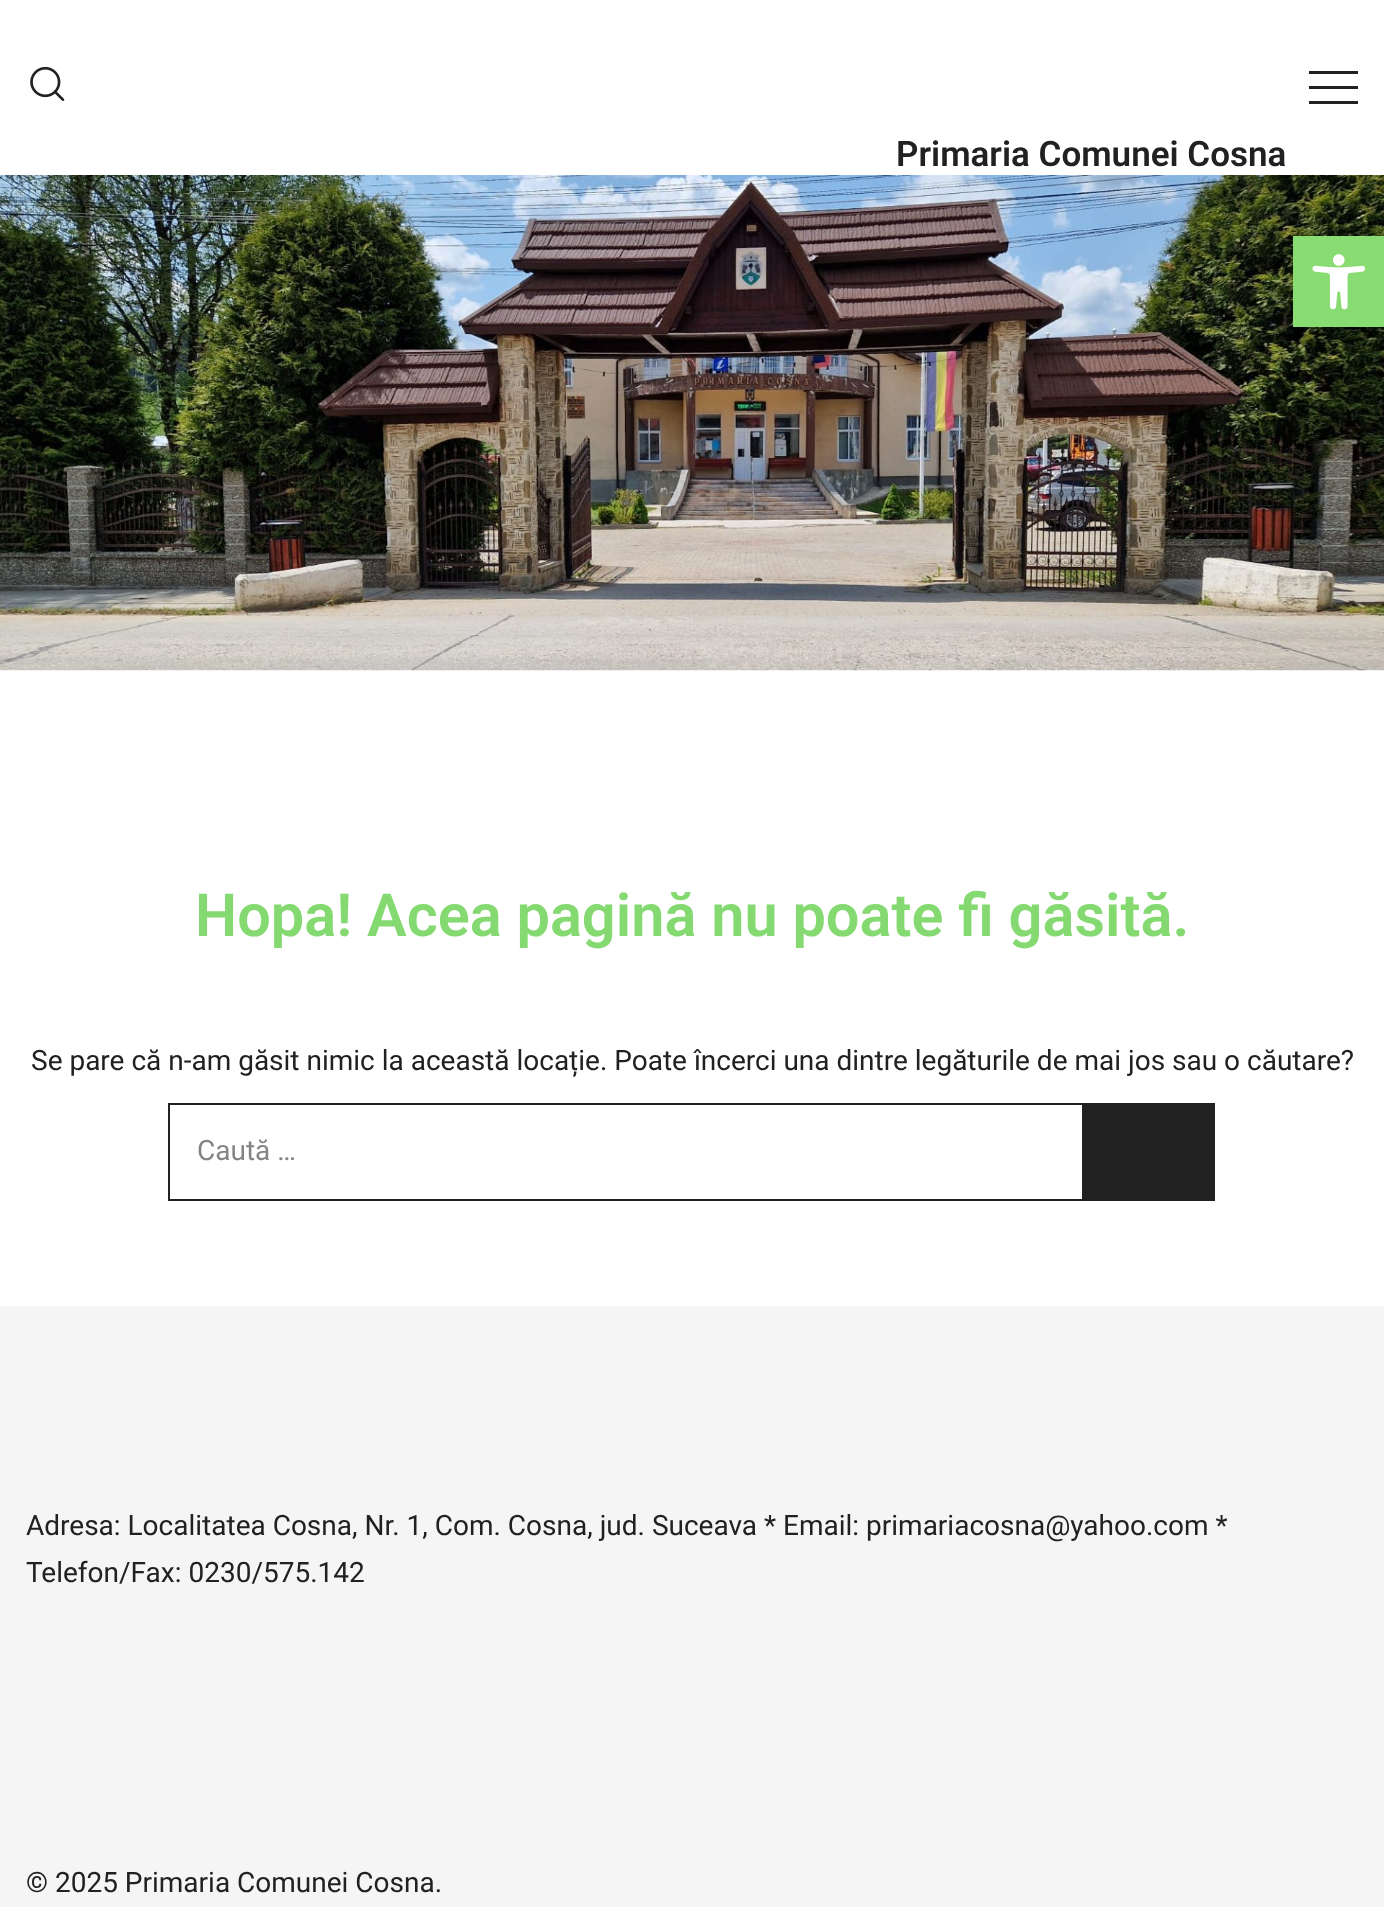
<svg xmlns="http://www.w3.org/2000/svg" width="1384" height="1907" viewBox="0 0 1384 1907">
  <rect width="100%" height="100%" fill="rgb(255,255,255)"/>
  <image x="30" y="66" width="35" height="35" href="pic1.png"/>
  <rect x="1309" y="71" width="49" height="3" fill="rgb(33,33,33)"/>
  <rect x="1309" y="86" width="49" height="3" fill="rgb(33,33,33)"/>
  <rect x="1309" y="101" width="49" height="3" fill="rgb(33,33,33)"/>
  <text x="896" y="166" font-family="Roboto" font-size="35" font-weight="600" fill="rgb(33,33,33)">Primaria Comunei Cosna</text>
  <image x="0" y="175" width="1384" height="496" href="pic2.png"/>
  <text x="195" y="936" font-family="Roboto" font-size="59.5" font-weight="600" fill="rgb(132,217,113)">Hopa! Acea pagină nu poate fi găsită.</text>
  <text x="31" y="1070" font-family="Roboto" font-size="28" fill="rgb(33,33,33)">Se pare că n-am găsit nimic la această locație. Poate încerci una dintre legăturile de mai jos sau o căutare?</text>
  <rect x="169" y="1104" width="915" height="96" fill="none" stroke="rgb(33,33,33)" stroke-width="2"/>
  <text x="197" y="1160" font-family="Roboto" font-size="28" fill="rgb(132,132,132)">Caută …</text>
  <rect x="1082" y="1103" width="133" height="98" fill="rgb(33,33,33)"/>
  <rect x="0" y="1306" width="1384" height="601" fill="rgb(245,245,245)"/>
  <g font-family="Roboto" font-size="28" fill="rgb(33,33,33)">
    <text>
      <tspan x="26" y="1535">Adresa: Localitatea Cosna, Nr. 1, Com. Cosna, jud. Suceava * Email: primariacosna@yahoo.com *</tspan>
      <tspan x="26" y="1582">Telefon/Fax: 0230/575.142</tspan>
    </text>
    <text x="26" y="1892">© 2025 Primaria Comunei Cosna.</text>
  </g>
  <rect x="1293" y="236" width="91" height="91" fill="rgba(0,0,0,0.1)" filter="blur(9px)"/>
  <rect x="1293" y="236" width="91" height="91" fill="rgb(137,220,114)"/>
  <image x="1312" y="254" width="54" height="56" href="pic3.png"/>
</svg>
